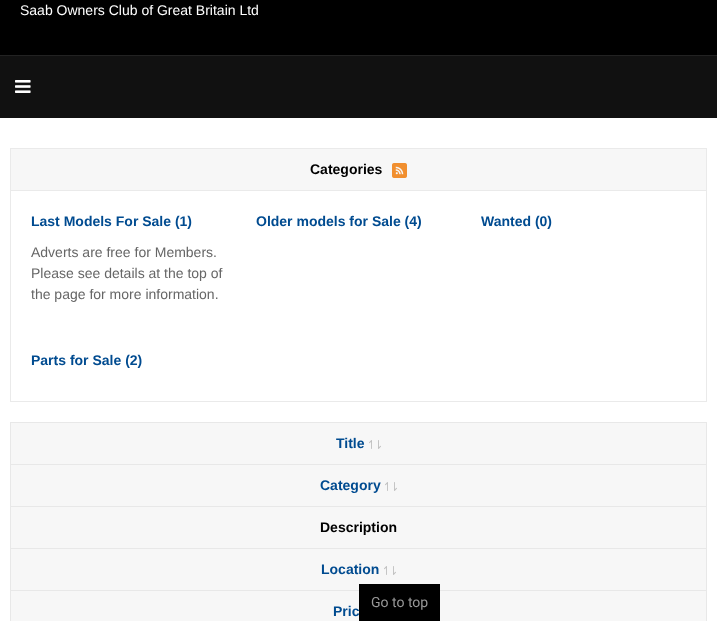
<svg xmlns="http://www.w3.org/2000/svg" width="717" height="621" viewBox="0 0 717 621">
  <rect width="100%" height="100%" fill="rgb(255,255,255)"/>
  <rect x="0" y="0" width="717" height="55" fill="rgb(0,0,0)"/>
  <text x="20" y="15" font-family="Liberation Sans" font-size="14" fill="rgb(255,255,255)">Saab Owners Club of Great Britain Ltd</text>
  <rect x="0" y="56" width="717" height="62" fill="rgb(17,17,17)"/>
  <rect x="0" y="55" width="717" height="1" fill="rgb(34,34,34)"/>
  <image x="15" y="80" width="16" height="13" href="pic1.png"/>
  <rect x="10.5" y="148.5" width="696" height="253" fill="none" stroke="rgb(234,234,234)"/>
  <rect x="11" y="149" width="695" height="41" fill="rgb(247,247,247)"/>
  <rect x="11" y="190" width="695" height="1" fill="rgb(234,234,234)"/>
  <text x="310" y="174" font-family="Liberation Sans" font-size="14" font-weight="bold" fill="rgb(0,0,0)">Categories</text>
  <image x="392" y="163" width="15" height="15" href="pic2.png"/>
  <text x="31" y="226" font-family="Liberation Sans" font-size="14" font-weight="bold" fill="rgb(0,75,144)">Last Models For Sale (1)</text>
  <g font-family="Liberation Sans" font-size="14" fill="rgb(102,102,102)">
    <text>
      <tspan x="31" y="257">Adverts are free for Members.</tspan>
      <tspan x="31" y="278">Please see details at the top of</tspan>
      <tspan x="31" y="299">the page for more information.</tspan>
    </text>
  </g>
  <g font-family="Liberation Sans" font-size="14" font-weight="bold" fill="rgb(0,75,144)">
    <text x="256" y="226">Older models for Sale (4)</text>
    <text x="481" y="226">Wanted (0)</text>
    <text x="31" y="365">Parts for Sale (2)</text>
  </g>
  <rect x="10" y="422" width="697" height="1" fill="rgb(232,232,232)"/>
  <rect x="706" y="422" width="1" height="199" fill="rgb(232,232,232)"/>
  <rect x="10" y="422" width="1" height="199" fill="rgb(232,232,232)"/>
  <rect x="11" y="423" width="695" height="41" fill="rgb(247,247,247)"/>
  <rect x="11" y="464" width="695" height="1" fill="rgb(232,232,232)"/>
  <text x="336" y="448" font-family="Liberation Sans" font-size="14" font-weight="bold" fill="rgb(0,75,144)">Title</text>
  <image x="369" y="440" width="12" height="9" href="pic3.png"/>
  <rect x="11" y="465" width="695" height="41" fill="rgb(247,247,247)"/>
  <rect x="11" y="506" width="695" height="1" fill="rgb(232,232,232)"/>
  <text x="320" y="490" font-family="Liberation Sans" font-size="14" font-weight="bold" fill="rgb(0,75,144)">Category</text>
  <image x="385" y="482" width="12" height="9" href="pic3.png"/>
  <rect x="11" y="507" width="695" height="41" fill="rgb(247,247,247)"/>
  <rect x="11" y="548" width="695" height="1" fill="rgb(232,232,232)"/>
  <text x="320" y="532" font-family="Liberation Sans" font-size="14" font-weight="bold" fill="rgb(0,0,0)">Description</text>
  <rect x="11" y="549" width="695" height="41" fill="rgb(247,247,247)"/>
  <rect x="11" y="590" width="695" height="1" fill="rgb(232,232,232)"/>
  <text x="321" y="574" font-family="Liberation Sans" font-size="14" font-weight="bold" fill="rgb(0,75,144)">Location</text>
  <image x="384" y="566" width="12" height="9" href="pic3.png"/>
  <rect x="11" y="591" width="695" height="30" fill="rgb(247,247,247)"/>
  <text x="333" y="616" font-family="Liberation Sans" font-size="14" font-weight="bold" fill="rgb(0,75,144)">Pric</text>
  <rect x="359" y="584" width="81" height="37" fill="rgb(0,0,0)"/>
  <text x="371" y="607" font-family="Roboto" font-size="14" fill="rgb(153,153,153)">Go to top</text>
</svg>
